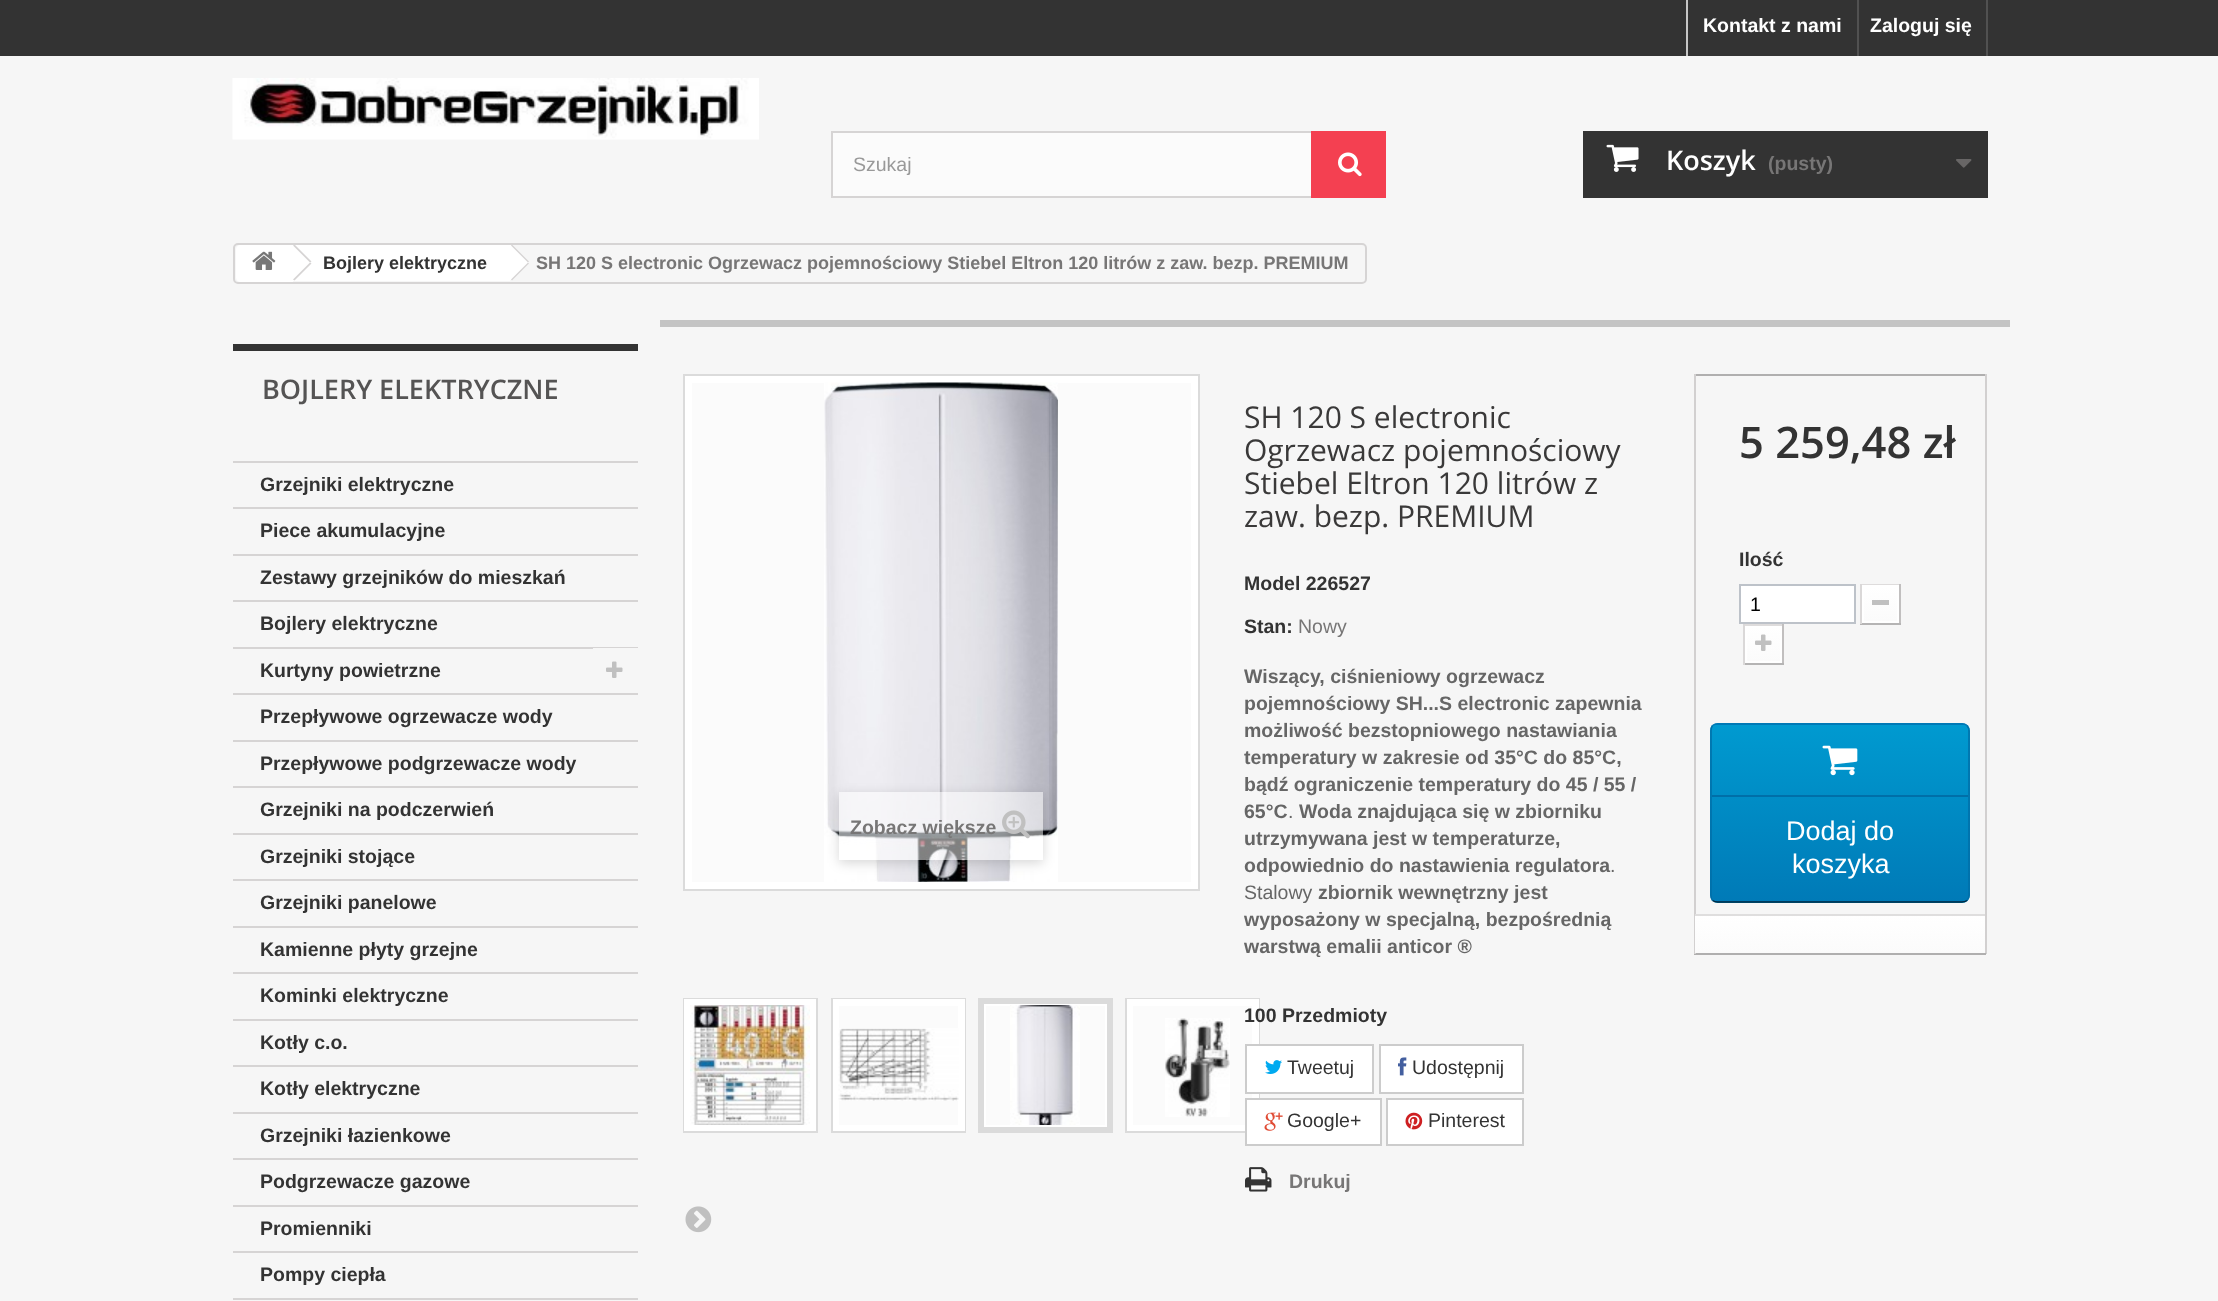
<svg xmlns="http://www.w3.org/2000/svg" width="2218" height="1301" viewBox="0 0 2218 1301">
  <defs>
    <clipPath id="clip1"><path d="M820 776H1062V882H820ZM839 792H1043V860H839Z" clip-rule="evenodd"/></clipPath>
    <linearGradient id="g1" gradientUnits="userSpaceOnUse" x1="1880" y1="587" x2="1880" y2="621"><stop offset="0" stop-color="rgb(255,255,255)"/><stop offset="1" stop-color="rgb(251,251,251)"/></linearGradient>
    <linearGradient id="g2" gradientUnits="userSpaceOnUse" x1="1763" y1="627" x2="1763" y2="662"><stop offset="0" stop-color="rgb(255,255,255)"/><stop offset="1" stop-color="rgb(251,251,251)"/></linearGradient>
    <clipPath id="clip2"><rect x="1710" y="723" width="260" height="180" rx="8"/></clipPath>
    <linearGradient id="g3" gradientUnits="userSpaceOnUse" x1="1840" y1="548" x2="1840" y2="725"><stop offset="0" stop-color="rgb(0,154,208)"/><stop offset="1" stop-color="rgb(0,122,183)"/></linearGradient>
    <linearGradient id="g4" gradientUnits="userSpaceOnUse" x1="1840" y1="725" x2="1840" y2="902"><stop offset="0" stop-color="rgb(0,154,208)"/><stop offset="1" stop-color="rgb(0,122,183)"/></linearGradient>
    <linearGradient id="g5" gradientUnits="userSpaceOnUse" x1="1840" y1="902" x2="1840" y2="1079"><stop offset="0" stop-color="rgb(0,154,208)"/><stop offset="1" stop-color="rgb(0,122,183)"/></linearGradient>
    <linearGradient id="g6" gradientUnits="userSpaceOnUse" x1="1840" y1="915" x2="1840" y2="953"><stop offset="0" stop-color="rgb(255,255,255)"/><stop offset="1" stop-color="rgb(251,251,251)"/></linearGradient>
  </defs>
  <rect width="100%" height="100%" fill="rgb(246,246,246)"/>
  <rect x="0" y="0" width="2218" height="56" fill="rgb(51,51,51)"/>
  <rect x="1686" y="0" width="2" height="56" fill="rgb(198,198,198)"/>
  <text x="1703" y="32" font-family="Liberation Sans" font-size="19.5" font-weight="bold" fill="rgb(255,255,255)">Kontakt z nami</text>
  <rect x="1986" y="0" width="2" height="56" fill="rgb(81,81,81)"/>
  <rect x="1857" y="0" width="2" height="56" fill="rgb(81,81,81)"/>
  <text x="1870" y="32" font-family="Liberation Sans" font-size="19.5" font-weight="bold" fill="rgb(255,255,255)">Zaloguj się</text>
  <image x="232" y="78" width="527" height="62" href="pic1.png"/>
  <rect x="833" y="133" width="478" height="63" fill="rgb(251,251,251)"/>
  <rect x="832" y="132" width="553" height="65" fill="none" stroke="rgb(214,212,212)" stroke-width="2"/>
  <text x="853" y="171" font-family="Liberation Sans" font-size="19.5" fill="rgb(153,153,153)">Szukaj</text>
  <rect x="1311" y="131" width="75" height="67" fill="rgb(244,64,81)"/>
  <image x="1338" y="152" width="24" height="25" href="pic2.png"/>
  <rect x="1583" y="131" width="405" height="67" fill="rgb(51,51,51)"/>
  <image x="1606" y="144" width="33" height="28" href="pic3.png"/>
  <text x="1666" y="170" font-family="Open Sans" font-size="27" font-weight="600" fill="rgb(255,255,255)">Koszyk</text>
  <text x="1768" y="170" font-family="Liberation Sans" font-size="19.5" font-weight="bold" fill="rgb(119,118,118)">(pusty)</text>
  <image x="1956" y="159" width="16" height="9" href="pic4.png"/>
  <rect x="234" y="244" width="1132" height="39" rx="4" fill="none" stroke="rgb(214,212,212)" stroke-width="2"/>
  <path d="M241 245H293V282H241C238 282 236 280 236 277V250C236 247 238 245 241 245Z" fill="rgb(255,255,255)"/>
  <image x="252" y="251" width="24" height="19" href="pic5.png"/>
  <rect x="293" y="245" width="217" height="36" fill="rgb(255,255,255)"/>
  <path d="M295 245L311.5 261.5L310 262.5L293 245.5L294 245Z" fill="rgb(214,212,212)"/>
  <path d="M310 262.5L311.5 263.5L294.5 280.5L293 279.5Z" fill="rgb(214,212,212)"/>
  <text x="323" y="269" font-family="Liberation Sans" font-size="18" font-weight="bold" fill="rgb(51,51,51)">Bojlery elektryczne</text>
  <path d="M513 245.5L512 245H509.5L508.5 245.5L494 260.5C492.5 261.5 492.5 263.5 494 264.5L508.5 279.5C510 280.5 512 280.5 513 279.5L528 264.5C529 263.5 529 261.5 528 260.5Z" fill="rgb(255,255,255)"/>
  <path d="M512 244.5L529 261.5L528 262.5L511 245.5Z" fill="rgb(214,212,212)"/>
  <path d="M528 262.5L529 263.5L512 280.5L511 279.5Z" fill="rgb(214,212,212)"/>
  <text x="536" y="269" font-family="Liberation Sans" font-size="18" font-weight="bold" fill="rgb(119,118,118)">SH 120 S electronic Ogrzewacz pojemnościowy Stiebel Eltron 120 litrów z zaw. bezp. PREMIUM</text>
  <rect x="233" y="344" width="405" height="7" fill="rgb(51,51,51)"/>
  <text x="262" y="399" font-family="Open Sans" font-size="27" font-weight="600" fill="rgb(85,84,84)">BOJLERY ELEKTRYCZNE</text>
  <rect x="233" y="461" width="405" height="2" fill="rgb(214,212,212)"/>
  <rect x="233" y="507" width="405" height="2" fill="rgb(214,212,212)"/>
  <text x="260" y="491" font-family="Liberation Sans" font-size="19.5" font-weight="bold" fill="rgb(51,51,51)">Grzejniki elektryczne</text>
  <rect x="233" y="554" width="405" height="2" fill="rgb(214,212,212)"/>
  <text x="260" y="537" font-family="Liberation Sans" font-size="19.5" font-weight="bold" fill="rgb(51,51,51)">Piece akumulacyjne</text>
  <rect x="233" y="600" width="405" height="2" fill="rgb(214,212,212)"/>
  <text x="260" y="584" font-family="Liberation Sans" font-size="19.5" font-weight="bold" fill="rgb(51,51,51)">Zestawy grzejników do mieszkań</text>
  <rect x="233" y="647" width="405" height="2" fill="rgb(214,212,212)"/>
  <text x="260" y="630" font-family="Liberation Sans" font-size="19.5" font-weight="bold" fill="rgb(51,51,51)">Bojlery elektryczne</text>
  <rect x="233" y="693" width="405" height="2" fill="rgb(214,212,212)"/>
  <text x="260" y="677" font-family="Liberation Sans" font-size="19.5" font-weight="bold" fill="rgb(51,51,51)">Kurtyny powietrzne</text>
  <rect x="593" y="648" width="45" height="1" fill="rgb(246,246,246)"/>
  <image x="606" y="661" width="17" height="17" href="pic6.png"/>
  <rect x="233" y="740" width="405" height="2" fill="rgb(214,212,212)"/>
  <text x="260" y="723" font-family="Liberation Sans" font-size="19.5" font-weight="bold" fill="rgb(51,51,51)">Przepływowe ogrzewacze wody</text>
  <rect x="233" y="786" width="405" height="2" fill="rgb(214,212,212)"/>
  <text x="260" y="770" font-family="Liberation Sans" font-size="19.5" font-weight="bold" fill="rgb(51,51,51)">Przepływowe podgrzewacze wody</text>
  <rect x="233" y="833" width="405" height="2" fill="rgb(214,212,212)"/>
  <text x="260" y="816" font-family="Liberation Sans" font-size="19.5" font-weight="bold" fill="rgb(51,51,51)">Grzejniki na podczerwień</text>
  <rect x="233" y="879" width="405" height="2" fill="rgb(214,212,212)"/>
  <text x="260" y="863" font-family="Liberation Sans" font-size="19.5" font-weight="bold" fill="rgb(51,51,51)">Grzejniki stojące</text>
  <rect x="233" y="926" width="405" height="2" fill="rgb(214,212,212)"/>
  <text x="260" y="909" font-family="Liberation Sans" font-size="19.5" font-weight="bold" fill="rgb(51,51,51)">Grzejniki panelowe</text>
  <rect x="233" y="972" width="405" height="2" fill="rgb(214,212,212)"/>
  <text x="260" y="956" font-family="Liberation Sans" font-size="19.5" font-weight="bold" fill="rgb(51,51,51)">Kamienne płyty grzejne</text>
  <rect x="233" y="1019" width="405" height="2" fill="rgb(214,212,212)"/>
  <text x="260" y="1002" font-family="Liberation Sans" font-size="19.5" font-weight="bold" fill="rgb(51,51,51)">Kominki elektryczne</text>
  <rect x="233" y="1065" width="405" height="2" fill="rgb(214,212,212)"/>
  <text x="260" y="1049" font-family="Liberation Sans" font-size="19.5" font-weight="bold" fill="rgb(51,51,51)">Kotły c.o.</text>
  <rect x="233" y="1112" width="405" height="2" fill="rgb(214,212,212)"/>
  <text x="260" y="1095" font-family="Liberation Sans" font-size="19.5" font-weight="bold" fill="rgb(51,51,51)">Kotły elektryczne</text>
  <rect x="233" y="1158" width="405" height="2" fill="rgb(214,212,212)"/>
  <text x="260" y="1142" font-family="Liberation Sans" font-size="19.5" font-weight="bold" fill="rgb(51,51,51)">Grzejniki łazienkowe</text>
  <rect x="233" y="1205" width="405" height="2" fill="rgb(214,212,212)"/>
  <text x="260" y="1188" font-family="Liberation Sans" font-size="19.5" font-weight="bold" fill="rgb(51,51,51)">Podgrzewacze gazowe</text>
  <rect x="233" y="1251" width="405" height="2" fill="rgb(214,212,212)"/>
  <text x="260" y="1235" font-family="Liberation Sans" font-size="19.5" font-weight="bold" fill="rgb(51,51,51)">Promienniki</text>
  <rect x="233" y="1298" width="405" height="2" fill="rgb(214,212,212)"/>
  <text x="260" y="1281" font-family="Liberation Sans" font-size="19.5" font-weight="bold" fill="rgb(51,51,51)">Pompy ciepła</text>
  <rect x="660" y="320" width="1350" height="7" fill="rgb(196,196,196)"/>
  <rect x="684" y="375" width="515" height="515" fill="rgb(255,255,255)" stroke="rgb(219,219,219)" stroke-width="2"/>
  <rect x="692" y="383" width="499" height="499" fill="rgb(251,251,251)"/>
  <image x="824" y="382" width="234" height="500" href="pic7.png"/>
  <g clip-path="url(#clip1)">
    <rect x="839" y="795" width="204" height="68" fill="rgba(0,0,0,0.16)" filter="blur(6px)"/>
  </g>
  <rect x="839" y="792" width="204" height="68" fill="rgba(255,255,255,0.5)"/>
  <text x="850" y="834" font-family="Liberation Sans" font-size="19.5" font-weight="bold" fill="rgb(119,118,118)">Zobacz większe</text>
  <image x="1002" y="810" width="28" height="29" href="pic8.png"/>
  <rect x="684" y="999" width="133" height="133" fill="none" stroke="rgb(219,219,219)" stroke-width="2"/>
  <rect x="686.5" y="1001.5" width="127" height="127" fill="none" stroke="rgb(255,255,255)" stroke-width="5"/>
  <rect x="690" y="1005" width="121" height="121" fill="none" stroke="rgb(255,255,255)" stroke-width="2"/>
  <image x="690" y="1005" width="120" height="120" href="pic9.png"/>
  <rect x="832" y="999" width="133" height="133" fill="none" stroke="rgb(219,219,219)" stroke-width="2"/>
  <rect x="839" y="1006" width="119" height="119" fill="rgb(251,251,251)"/>
  <rect x="835.5" y="1001.5" width="127" height="127" fill="none" stroke="rgb(255,255,255)" stroke-width="5"/>
  <rect x="838" y="1005" width="121" height="121" fill="none" stroke="rgb(255,255,255)" stroke-width="2"/>
  <image x="838" y="1028" width="121" height="73" href="pic10.png"/>
  <rect x="979" y="999" width="133" height="133" fill="none" stroke="rgb(219,219,219)" stroke-width="2"/>
  <rect x="986" y="1006" width="119" height="119" fill="rgb(251,251,251)"/>
  <rect x="982.5" y="1001.5" width="127" height="127" fill="none" stroke="rgb(219,219,219)" stroke-width="5"/>
  <rect x="985" y="1005" width="121" height="121" fill="none" stroke="rgb(255,255,255)" stroke-width="2"/>
  <image x="1010" y="1005" width="70" height="120" href="pic11.png"/>
  <rect x="1126" y="999" width="133" height="133" fill="none" stroke="rgb(219,219,219)" stroke-width="2"/>
  <rect x="1133" y="1006" width="119" height="119" fill="rgb(251,251,251)"/>
  <rect x="1129.5" y="1001.5" width="127" height="127" fill="none" stroke="rgb(255,255,255)" stroke-width="5"/>
  <rect x="1132" y="1005" width="121" height="121" fill="none" stroke="rgb(255,255,255)" stroke-width="2"/>
  <image x="1165" y="1018" width="65" height="99" href="pic12.png"/>
  <image x="685" y="1206" width="27" height="27" href="pic13.png"/>
  <g font-family="Open Sans" font-size="30" fill="rgb(58,57,57)">
    <text>
      <tspan x="1244" y="428">SH 120 S electronic</tspan>
      <tspan x="1244" y="461">Ogrzewacz pojemnościowy</tspan>
      <tspan x="1244" y="494">Stiebel Eltron 120 litrów z</tspan>
      <tspan x="1244" y="527">zaw. bezp. PREMIUM</tspan>
    </text>
  </g>
  <g font-family="Liberation Sans" font-size="19.5" font-weight="bold" fill="rgb(51,51,51)">
    <text x="1244" y="590">Model 226527</text>
    <text x="1244" y="633">Stan:</text>
  </g>
  <text x="1298" y="633" font-family="Liberation Sans" font-size="19.5" fill="rgb(119,118,118)">Nowy</text>
  <g font-family="Liberation Sans" font-size="19.5" font-weight="bold" fill="rgb(102,102,102)">
    <text>
      <tspan x="1244" y="683">Wiszący, ciśnieniowy ogrzewacz</tspan>
      <tspan x="1244" y="710">pojemnościowy SH...S electronic zapewnia</tspan>
      <tspan x="1244" y="737">możliwość bezstopniowego nastawiania</tspan>
      <tspan x="1244" y="764">temperatury w zakresie od 35°C do 85°C,</tspan>
      <tspan x="1244" y="791">bądź ograniczenie temperatury do 45 / 55 /</tspan>
      <tspan x="1244" y="818">65°C</tspan>
    </text>
  </g>
  <text x="1288" y="818" font-family="Liberation Sans" font-size="19.5" fill="rgb(102,102,102)">.</text>
  <g font-family="Liberation Sans" font-size="19.5" font-weight="bold" fill="rgb(102,102,102)">
    <text x="1299" y="818">Woda znajdująca się w zbiorniku</text>
    <text>
      <tspan x="1244" y="845">utrzymywana jest w temperaturze,</tspan>
      <tspan x="1244" y="872">odpowiednio do nastawienia regulatora</tspan>
    </text>
  </g>
  <g font-family="Liberation Sans" font-size="19.5" fill="rgb(102,102,102)">
    <text x="1610" y="872">.</text>
    <text x="1244" y="899">Stalowy</text>
  </g>
  <g font-family="Liberation Sans" font-size="19.5" font-weight="bold" fill="rgb(102,102,102)">
    <text x="1318" y="899">zbiornik wewnętrzny jest</text>
    <text>
      <tspan x="1244" y="926">wyposażony w specjalną, bezpośrednią</tspan>
      <tspan x="1244" y="953">warstwą emalii anticor ®</tspan>
    </text>
  </g>
  <text x="1244" y="1022" font-family="Liberation Sans" font-size="19.5" font-weight="bold" fill="rgb(51,51,51)">100 Przedmioty</text>
  <rect x="1246" y="1045" width="127" height="48" fill="rgb(255,255,255)" stroke="rgb(204,204,204)" stroke-width="2"/>
  <image x="1265" y="1060" width="17" height="14" href="pic14.png"/>
  <text x="1287" y="1074" font-family="Liberation Sans" font-size="19.5" fill="rgb(51,51,51)">Tweetuj</text>
  <rect x="1380" y="1045" width="143" height="48" fill="rgb(255,255,255)" stroke="rgb(204,204,204)" stroke-width="2"/>
  <image x="1398" y="1057" width="9" height="19" href="pic15.png"/>
  <text x="1412" y="1074" font-family="Liberation Sans" font-size="19.5" fill="rgb(51,51,51)">Udostępnij</text>
  <rect x="1246" y="1099" width="135" height="46" fill="rgb(255,255,255)" stroke="rgb(204,204,204)" stroke-width="2"/>
  <image x="1264" y="1112" width="19" height="19" href="pic16.png"/>
  <text x="1287" y="1127" font-family="Liberation Sans" font-size="19.5" fill="rgb(51,51,51)">Google+</text>
  <rect x="1387" y="1099" width="136" height="46" fill="rgb(255,255,255)" stroke="rgb(204,204,204)" stroke-width="2"/>
  <image x="1405" y="1112" width="18" height="18" href="pic17.png"/>
  <text x="1428" y="1127" font-family="Liberation Sans" font-size="19.5" fill="rgb(51,51,51)">Pinterest</text>
  <image x="1245" y="1167" width="27" height="25" href="pic18.png"/>
  <text x="1289" y="1188" font-family="Liberation Sans" font-size="19.5" font-weight="bold" fill="rgb(119,118,118)">Drukuj</text>
  <rect x="1694" y="374" width="292" height="2" fill="rgb(176,175,175)"/>
  <rect x="1985" y="374" width="2" height="580" fill="rgb(210,208,208)"/>
  <rect x="1694" y="953" width="292" height="2" fill="rgb(176,175,175)"/>
  <rect x="1694" y="374" width="2" height="580" fill="rgb(210,208,208)"/>
  <text x="1739" y="458" font-family="Open Sans" font-size="43.5" font-weight="600" fill="rgb(51,51,51)">5 259,48 zł</text>
  <text x="1739" y="566" font-family="Liberation Sans" font-size="19.5" font-weight="bold" fill="rgb(51,51,51)">Ilość</text>
  <rect x="1740" y="585" width="115" height="38" fill="rgb(255,255,255)" stroke="rgb(189,194,201)" stroke-width="2"/>
  <text x="1750" y="611" font-family="Liberation Sans" font-size="19.5" fill="rgb(0,0,0)">1</text>
  <rect x="1860" y="584" width="41" height="1" fill="rgb(222,220,220)"/>
  <rect x="1899" y="584" width="2" height="40" fill="rgb(193,191,191)"/>
  <rect x="1860" y="623" width="41" height="2" fill="rgb(181,180,180)"/>
  <rect x="1860" y="584" width="2" height="40" fill="rgb(218,216,216)"/>
  <rect x="1864" y="587" width="33" height="34" fill="url(#g1)"/>
  <rect x="1863" y="586" width="35" height="36" fill="none" stroke="rgb(255,255,255)" stroke-width="2"/>
  <rect x="1872" y="600" width="17" height="5" fill="rgb(192,192,192)"/>
  <rect x="1743" y="624" width="41" height="2" fill="rgb(222,220,220)"/>
  <rect x="1782" y="624" width="2" height="41" fill="rgb(193,191,191)"/>
  <rect x="1743" y="663" width="41" height="2" fill="rgb(181,180,180)"/>
  <rect x="1743" y="624" width="2" height="41" fill="rgb(218,216,216)"/>
  <rect x="1747" y="628" width="33" height="33" fill="url(#g2)"/>
  <rect x="1746" y="627" width="35" height="35" fill="none" stroke="rgb(255,255,255)" stroke-width="2"/>
  <image x="1755" y="634" width="17" height="17" href="pic19.png"/>
  <g clip-path="url(#clip2)">
    <rect x="1710" y="723" width="260" height="2" fill="url(#g3)"/>
    <rect x="1710" y="725" width="260" height="177" fill="url(#g4)"/>
    <rect x="1710" y="902" width="260" height="1" fill="url(#g5)"/>
  </g>
  <path d="M1712.5 725.5C1714 724.5 1715.5 724 1717.5 724H1962C1964 724 1965.5 724.5 1967 725.5" fill="none" stroke="rgb(0,121,182)" stroke-width="1.5"/>
  <path d="M1967 725.5C1968 727 1969 728.5 1969 730.5V895.5C1969 897.5 1968 899 1967 900.5" fill="none" stroke="rgb(0,111,168)" stroke-width="1.5"/>
  <path d="M1967 900.5C1965.5 901.5 1964 902 1962 902H1717.5C1715.5 902 1714 901.5 1712.5 900.5" fill="none" stroke="rgb(1,39,64)" stroke-width="1.5"/>
  <path d="M1712.5 900.5C1711.5 899 1711 897.5 1711 895.5V730.5C1711 728.5 1711.5 727 1712.5 725.5" fill="none" stroke="rgb(0,111,168)" stroke-width="1.5"/>
  <image x="1822" y="745" width="36" height="31" href="pic20.png"/>
  <rect x="1712" y="795" width="256" height="2" fill="rgb(0,111,168)"/>
  <g font-family="Liberation Sans" font-size="27" fill="rgb(255,255,255)">
    <text x="1786" y="840">Dodaj do</text>
    <text x="1792" y="873">koszyka</text>
  </g>
  <rect x="1695" y="916" width="290" height="37" fill="url(#g6)"/>
  <rect x="1695" y="914" width="290" height="2" fill="rgb(223,222,222)"/>
</svg>
